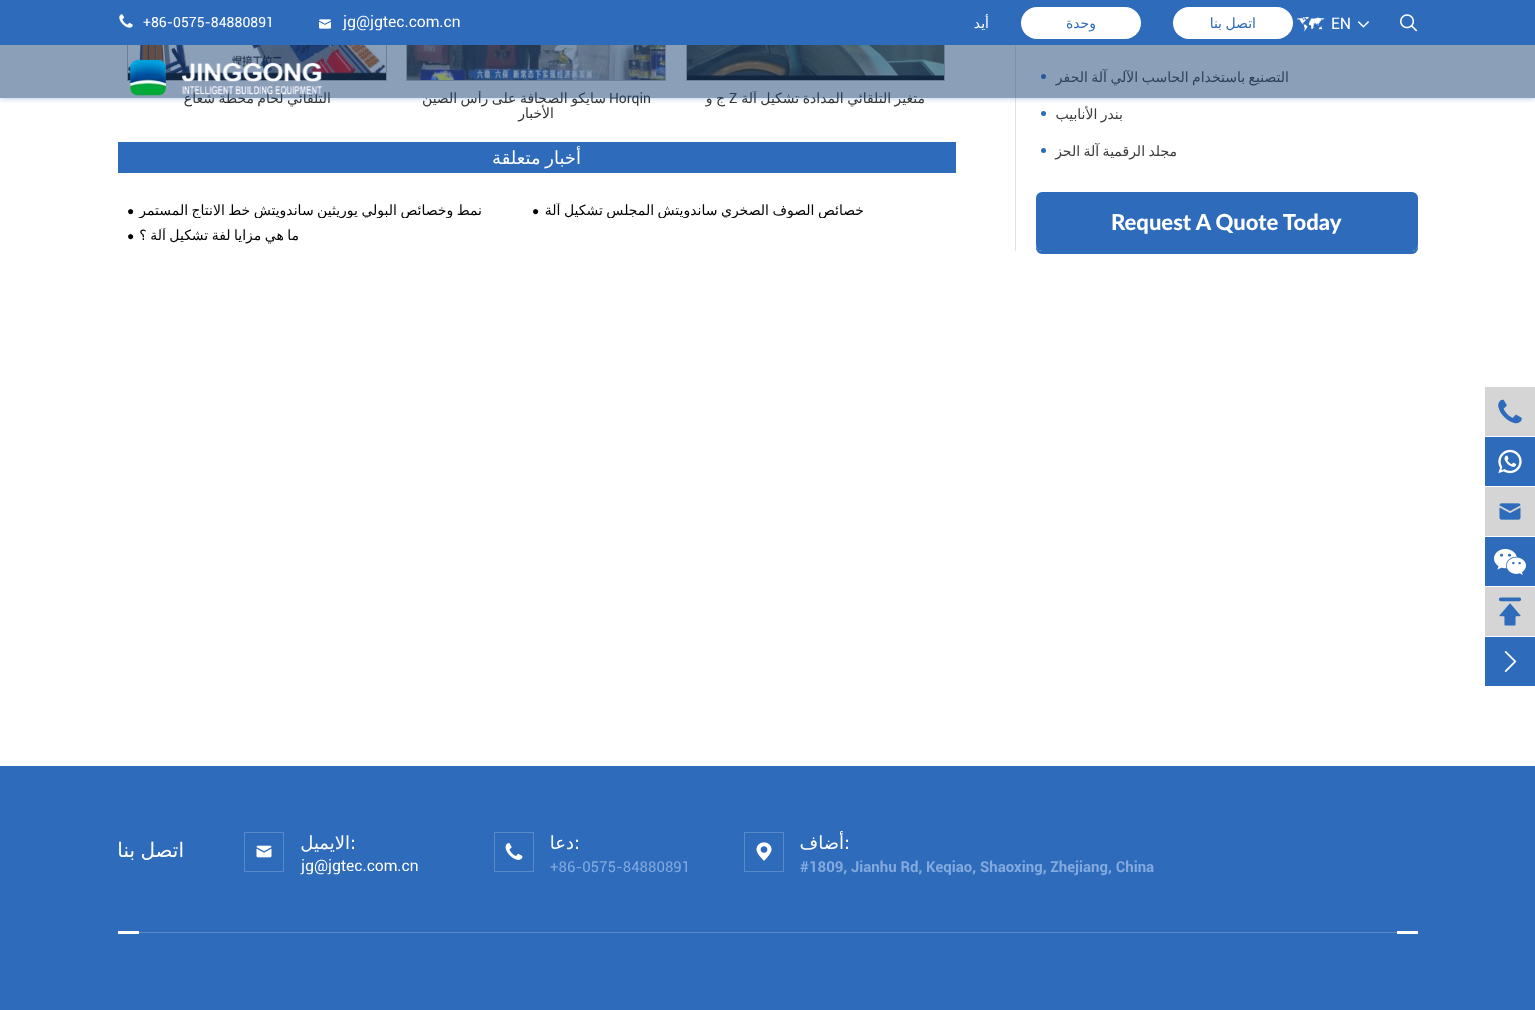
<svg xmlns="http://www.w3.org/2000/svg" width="1535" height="1010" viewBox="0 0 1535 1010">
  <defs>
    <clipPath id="clip1"><rect x="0" y="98" width="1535" height="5"/></clipPath>
    <clipPath id="clip2"><rect x="686" y="91" width="259" height="31"/></clipPath>
    <clipPath id="clip3"><rect x="406" y="91" width="260" height="31"/></clipPath>
    <clipPath id="clip4"><rect x="532" y="203" width="386" height="15"/></clipPath>
    <clipPath id="clip5"><rect x="127" y="203" width="386" height="15"/></clipPath>
    <clipPath id="clip6"><rect x="127" y="228" width="386" height="16"/></clipPath>
  </defs>
  <rect width="100%" height="100%" fill="rgb(255,255,255)"/>
  <rect x="1015" y="45" width="1" height="206" fill="rgb(225,225,225)"/>
  <circle cx="1043.5" cy="76.5" r="2.5" fill="rgb(46,107,187)"/>
  <rect x="686.5" y="-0.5" width="258" height="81" fill="none" stroke="rgb(187,187,187)"/>
  <image x="687" y="45" width="257" height="35" href="pic8.png"/>
  <rect x="406.5" y="-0.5" width="259" height="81" fill="none" stroke="rgb(187,187,187)"/>
  <image x="407" y="45" width="258" height="35" href="pic9.png"/>
  <rect x="127.5" y="-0.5" width="259" height="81" fill="none" stroke="rgb(187,187,187)"/>
  <image x="128" y="45" width="258" height="35" href="pic10.png"/>
  <g clip-path="url(#clip1)">
    <rect x="0" y="0" width="1535" height="98" fill="rgba(46,107,187,0.4)" filter="blur(3px)"/>
  </g>
  <text x="1289" y="82" word-spacing="-1" font-family="DejaVu Sans" font-size="14" direction="rtl" fill="rgb(58,58,58)">التصنيع باستخدام الحاسب الآلي آلة الحفر</text>
  <g clip-path="url(#clip2)">
    <text x="925" y="103" word-spacing="-1" font-family="DejaVu Sans" font-size="14" direction="rtl" fill="rgb(51,51,51)">متغير التلقائي المدادة تشكيل آلة</text>
  </g>
  <text x="729" y="103" font-family="Roboto" font-size="14" fill="rgb(51,51,51)">Z</text>
  <text x="725" y="103" word-spacing="-1" font-family="DejaVu Sans" font-size="14" direction="rtl" fill="rgb(51,51,51)">ج و</text>
  <text x="609" y="103" font-family="Roboto" font-size="14" fill="rgb(51,51,51)">Horqin</text>
  <g clip-path="url(#clip3)">
    <text x="606" y="103" word-spacing="-1" font-family="DejaVu Sans" font-size="14" direction="rtl" fill="rgb(51,51,51)">سايكو الصحافة على رأس الصين</text>
  </g>
  <text x="331" y="103" word-spacing="-1" font-family="DejaVu Sans" font-size="14" direction="rtl" fill="rgb(51,51,51)">التلقائي لحام محطة شعاع</text>
  <rect x="0" y="45" width="1535" height="53" fill="rgba(46,107,187,0.4)"/>
  <rect x="0" y="0" width="1535" height="45" fill="rgb(46,107,187)"/>
  <image x="1400" y="14" width="18" height="18" href="pic1.png"/>
  <image x="1357" y="21" width="12" height="7" href="pic2.png"/>
  <text x="1331" y="29" font-family="Roboto" font-size="16" fill="rgb(255,255,255)">EN</text>
  <image x="1297" y="17" width="28" height="15" href="pic3.png"/>
  <rect x="1173" y="7" width="120" height="32" rx="16" fill="rgb(255,255,255)"/>
  <text x="1256" y="28" word-spacing="-1" font-family="DejaVu Sans" font-size="14" direction="rtl" fill="rgb(46,107,187)">اتصل بنا</text>
  <rect x="1021" y="7" width="120" height="32" rx="16" fill="rgb(255,255,255)"/>
  <text x="1096" y="28" font-family="DejaVu Sans" font-size="14" direction="rtl" fill="rgb(46,107,187)">وحدة</text>
  <text x="989" y="28" font-family="DejaVu Sans" font-size="14" direction="rtl" fill="rgb(255,255,255)">أيد</text>
  <image x="342" y="15" width="118" height="16" href="pic4.png"/>
  <image x="319" y="19" width="12" height="10" href="pic5.png"/>
  <text x="143" y="27" font-family="Roboto" font-size="14" fill="rgb(255,255,255)">+86-0575-84880891</text>
  <image x="119" y="14" width="14" height="14" href="pic6.png"/>
  <rect x="0" y="45" width="1535" height="53" fill="rgba(17,17,17,0.2)"/>
  <image x="129" y="59" width="193" height="37" href="pic7.png"/>
  <text x="1123" y="119" word-spacing="-1" font-family="DejaVu Sans" font-size="14" direction="rtl" fill="rgb(58,58,58)">بندر الأنابيب</text>
  <circle cx="1043.5" cy="113.5" r="2.5" fill="rgb(46,107,187)"/>
  <text x="1177" y="156" word-spacing="-1" font-family="DejaVu Sans" font-size="14" direction="rtl" fill="rgb(58,58,58)">مجلد الرقمية آلة الحز</text>
  <circle cx="1043.5" cy="150.5" r="2.5" fill="rgb(46,107,187)"/>
  <path d="M1036 245V248C1036 251 1039 254 1042 254H1412C1415 254 1418 251 1418 248V245C1418 248 1415 251 1412 251H1042C1039 251 1036 248 1036 245Z" fill="rgb(46,107,187)"/>
  <rect x="1036" y="192" width="382" height="59" rx="6" fill="rgb(46,107,187)"/>
  <text x="1111" y="230" font-family="Lato" font-size="22" font-weight="900" fill="rgb(255,255,255)">Request A Quote Today</text>
  <text x="554" y="118" font-family="DejaVu Sans" font-size="14" direction="rtl" fill="rgb(51,51,51)">الأخبار</text>
  <rect x="118" y="142" width="838" height="31" fill="rgb(46,107,187)"/>
  <text x="581" y="164" word-spacing="-1" font-family="DejaVu Sans" font-size="18" direction="rtl" fill="rgb(255,255,255)">أخبار متعلقة</text>
  <g clip-path="url(#clip4)">
    <text x="864" y="215" word-spacing="-1" font-family="DejaVu Sans" font-size="14" direction="rtl" fill="rgb(0,0,0)">خصائص الصوف الصخري ساندويتش المجلس تشكيل آلة</text>
  </g>
  <text x="532" y="215" font-family="Liberation Serif" font-size="12" fill="rgb(0,0,0)">●</text>
  <g clip-path="url(#clip5)">
    <text x="482" y="215" word-spacing="-1" font-family="DejaVu Sans" font-size="14" direction="rtl" fill="rgb(0,0,0)">نمط وخصائص البولي يوريثين ساندويتش خط الانتاج المستمر</text>
  </g>
  <text x="127" y="215" font-family="Liberation Serif" font-size="12" fill="rgb(0,0,0)">●</text>
  <g clip-path="url(#clip6)">
    <text x="299" y="240" word-spacing="-1" font-family="DejaVu Sans" font-size="14" direction="rtl" fill="rgb(0,0,0)">ما هي مزايا لفة تشكيل آلة ؟</text>
  </g>
  <text x="127" y="240" font-family="Liberation Serif" font-size="12" fill="rgb(0,0,0)">●</text>
  <rect x="1485" y="387" width="50" height="49" fill="rgb(213,213,213)"/>
  <image x="1498" y="399" width="24" height="25" href="pic11.png"/>
  <rect x="1485" y="437" width="50" height="49" fill="rgb(46,107,187)"/>
  <image x="1498" y="449" width="24" height="25" href="pic12.png"/>
  <rect x="1485" y="487" width="50" height="49" fill="rgb(213,213,213)"/>
  <image x="1499" y="503" width="22" height="17" href="pic13.png"/>
  <rect x="1485" y="537" width="50" height="49" fill="rgb(46,107,187)"/>
  <image x="1494" y="549" width="32" height="26" href="pic14.png"/>
  <rect x="1485" y="587" width="50" height="49" fill="rgb(213,213,213)"/>
  <image x="1498" y="597" width="24" height="29" href="pic15.png"/>
  <rect x="1485" y="637" width="50" height="49" fill="rgb(46,107,187)"/>
  <image x="1504" y="651" width="13" height="21" href="pic16.png"/>
  <rect x="0" y="766" width="1535" height="244" fill="rgb(46,107,187)"/>
  <text x="844" y="849" font-family="DejaVu Sans" font-size="18" fill="rgb(255,255,255)">:</text>
  <text x="844" y="849" font-family="DejaVu Sans" font-size="18" direction="rtl" fill="rgb(255,255,255)">أضاف</text>
  <rect x="744.5" y="832.5" width="39" height="39" fill="none" stroke="rgb(88,137,201)"/>
  <image x="756" y="842" width="16" height="19" href="pic17.png"/>
  <text x="800" y="872" font-family="Roboto" font-size="15" font-weight="bold" fill="rgb(130,170,223)">#1809, Jianhu Rd, Keqiao, Shaoxing, Zhejiang, China</text>
  <text x="574" y="849" font-family="DejaVu Sans" font-size="18" fill="rgb(255,255,255)">:</text>
  <text x="574" y="849" font-family="DejaVu Sans" font-size="18" direction="rtl" fill="rgb(255,255,255)">دعا</text>
  <rect x="494.5" y="832.5" width="39" height="39" fill="none" stroke="rgb(88,137,201)"/>
  <image x="505" y="843" width="18" height="17" href="pic18.png"/>
  <text x="550" y="872" font-family="Roboto" font-size="15" fill="rgb(130,170,223)">+86-0575-84880891</text>
  <text x="350" y="849" font-family="DejaVu Sans" font-size="18" fill="rgb(255,255,255)">:</text>
  <text x="350" y="849" font-family="DejaVu Sans" font-size="18" direction="rtl" fill="rgb(255,255,255)">الايميل</text>
  <rect x="244.5" y="832.5" width="39" height="39" fill="none" stroke="rgb(88,137,201)"/>
  <image x="256" y="845" width="16" height="13" href="pic19.png"/>
  <image x="300" y="859" width="118" height="16" href="pic4.png"/>
  <text x="184" y="857" word-spacing="-1" font-family="DejaVu Sans" font-size="20" direction="rtl" fill="rgb(255,255,255)">اتصل بنا</text>
  <rect x="139" y="932" width="1258" height="1" fill="rgb(88,137,201)"/>
  <rect x="1397" y="931" width="21" height="3" fill="rgb(255,255,255)"/>
  <rect x="118" y="931" width="21" height="3" fill="rgb(255,255,255)"/>
</svg>
